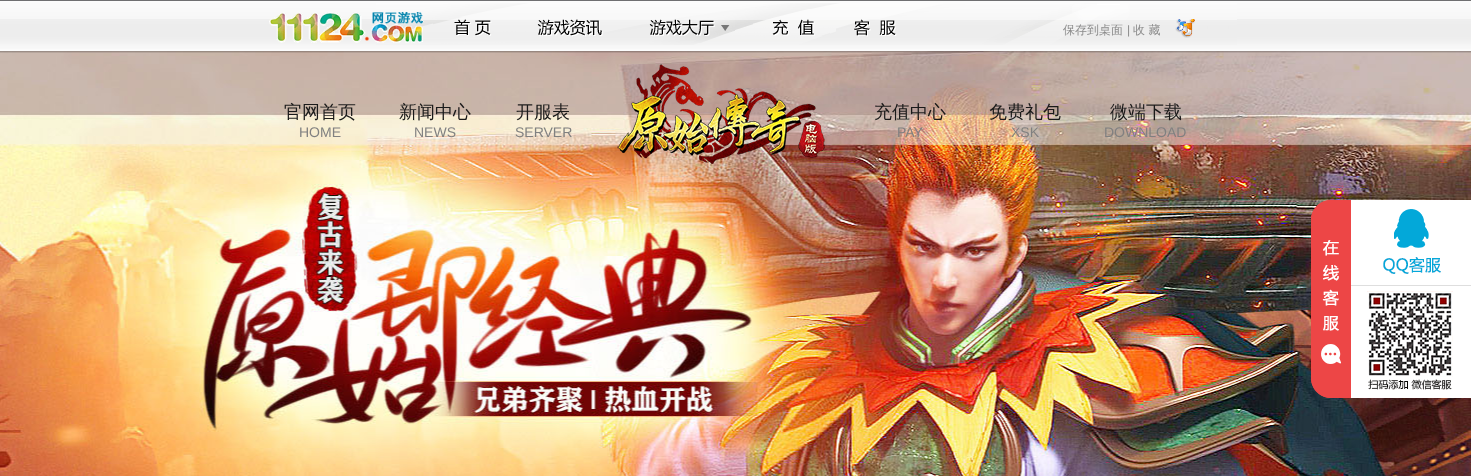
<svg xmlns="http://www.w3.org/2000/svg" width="1471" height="476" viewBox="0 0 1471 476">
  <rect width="100%" height="100%" fill="rgb(255,255,255)"/>
  <image x="0" y="51" width="1471" height="425" href="pic1.png"/>
  <image x="0" y="0" width="1471" height="53" href="pic2.png"/>
  <image x="376" y="3" width="861" height="42" href="pic3.png"/>
  <image x="269" y="12" width="155" height="31" href="pic4.png"/>
  <image x="433" y="17" width="59" height="19" href="pic5.png"/>
  <image x="535" y="19" width="68" height="18" href="pic6.png"/>
  <image x="647" y="19" width="88" height="24" href="pic7.png"/>
  <image x="753" y="9" width="77" height="27" href="pic8.png"/>
  <image x="836" y="19" width="71" height="18" href="pic9.png"/>
  <text x="1063" y="34" font-family="WenQuanYi Zen Hei" font-size="12" font-weight="500" fill="rgb(139,139,139)">保存到桌面</text>
  <text x="1127" y="34" font-family="Liberation Sans" font-size="12" fill="rgb(139,139,139)">|</text>
  <text x="1133" y="34" font-family="WenQuanYi Zen Hei" font-size="12" font-weight="500" fill="rgb(139,139,139)">收 藏</text>
  <text x="284" y="118" font-family="WenQuanYi Zen Hei" font-size="18" font-weight="500" fill="rgb(26,26,26)">官网首页</text>
  <text x="299" y="137" font-family="Liberation Sans" font-size="14" fill="rgb(128,128,128)">HOME</text>
  <text x="399" y="118" font-family="WenQuanYi Zen Hei" font-size="18" font-weight="500" fill="rgb(26,26,26)">新闻中心</text>
  <text x="414" y="137" font-family="Liberation Sans" font-size="14" fill="rgb(128,128,128)">NEWS</text>
  <text x="516" y="118" font-family="WenQuanYi Zen Hei" font-size="18" font-weight="500" fill="rgb(26,26,26)">开服表</text>
  <text x="515" y="137" font-family="Liberation Sans" font-size="14" fill="rgb(128,128,128)">SERVER</text>
  <image x="617" y="64" width="208" height="100" href="pic10.png"/>
  <text x="874" y="118" font-family="WenQuanYi Zen Hei" font-size="18" font-weight="500" fill="rgb(26,26,26)">充值中心</text>
  <text x="897" y="137" font-family="Liberation Sans" font-size="14" fill="rgb(128,128,128)">PAY</text>
  <text x="989" y="118" font-family="WenQuanYi Zen Hei" font-size="18" font-weight="500" fill="rgb(26,26,26)">免费礼包</text>
  <text x="1011" y="137" font-family="Liberation Sans" font-size="14" fill="rgb(128,128,128)">XSK</text>
  <text x="1110" y="118" font-family="WenQuanYi Zen Hei" font-size="18" font-weight="500" fill="rgb(26,26,26)">微端下载</text>
  <text x="1104" y="137" font-family="Liberation Sans" font-size="14" fill="rgb(128,128,128)">DOWNLOAD</text>
  <image x="1311" y="200" width="160" height="198" href="pic11.png"/>
</svg>
